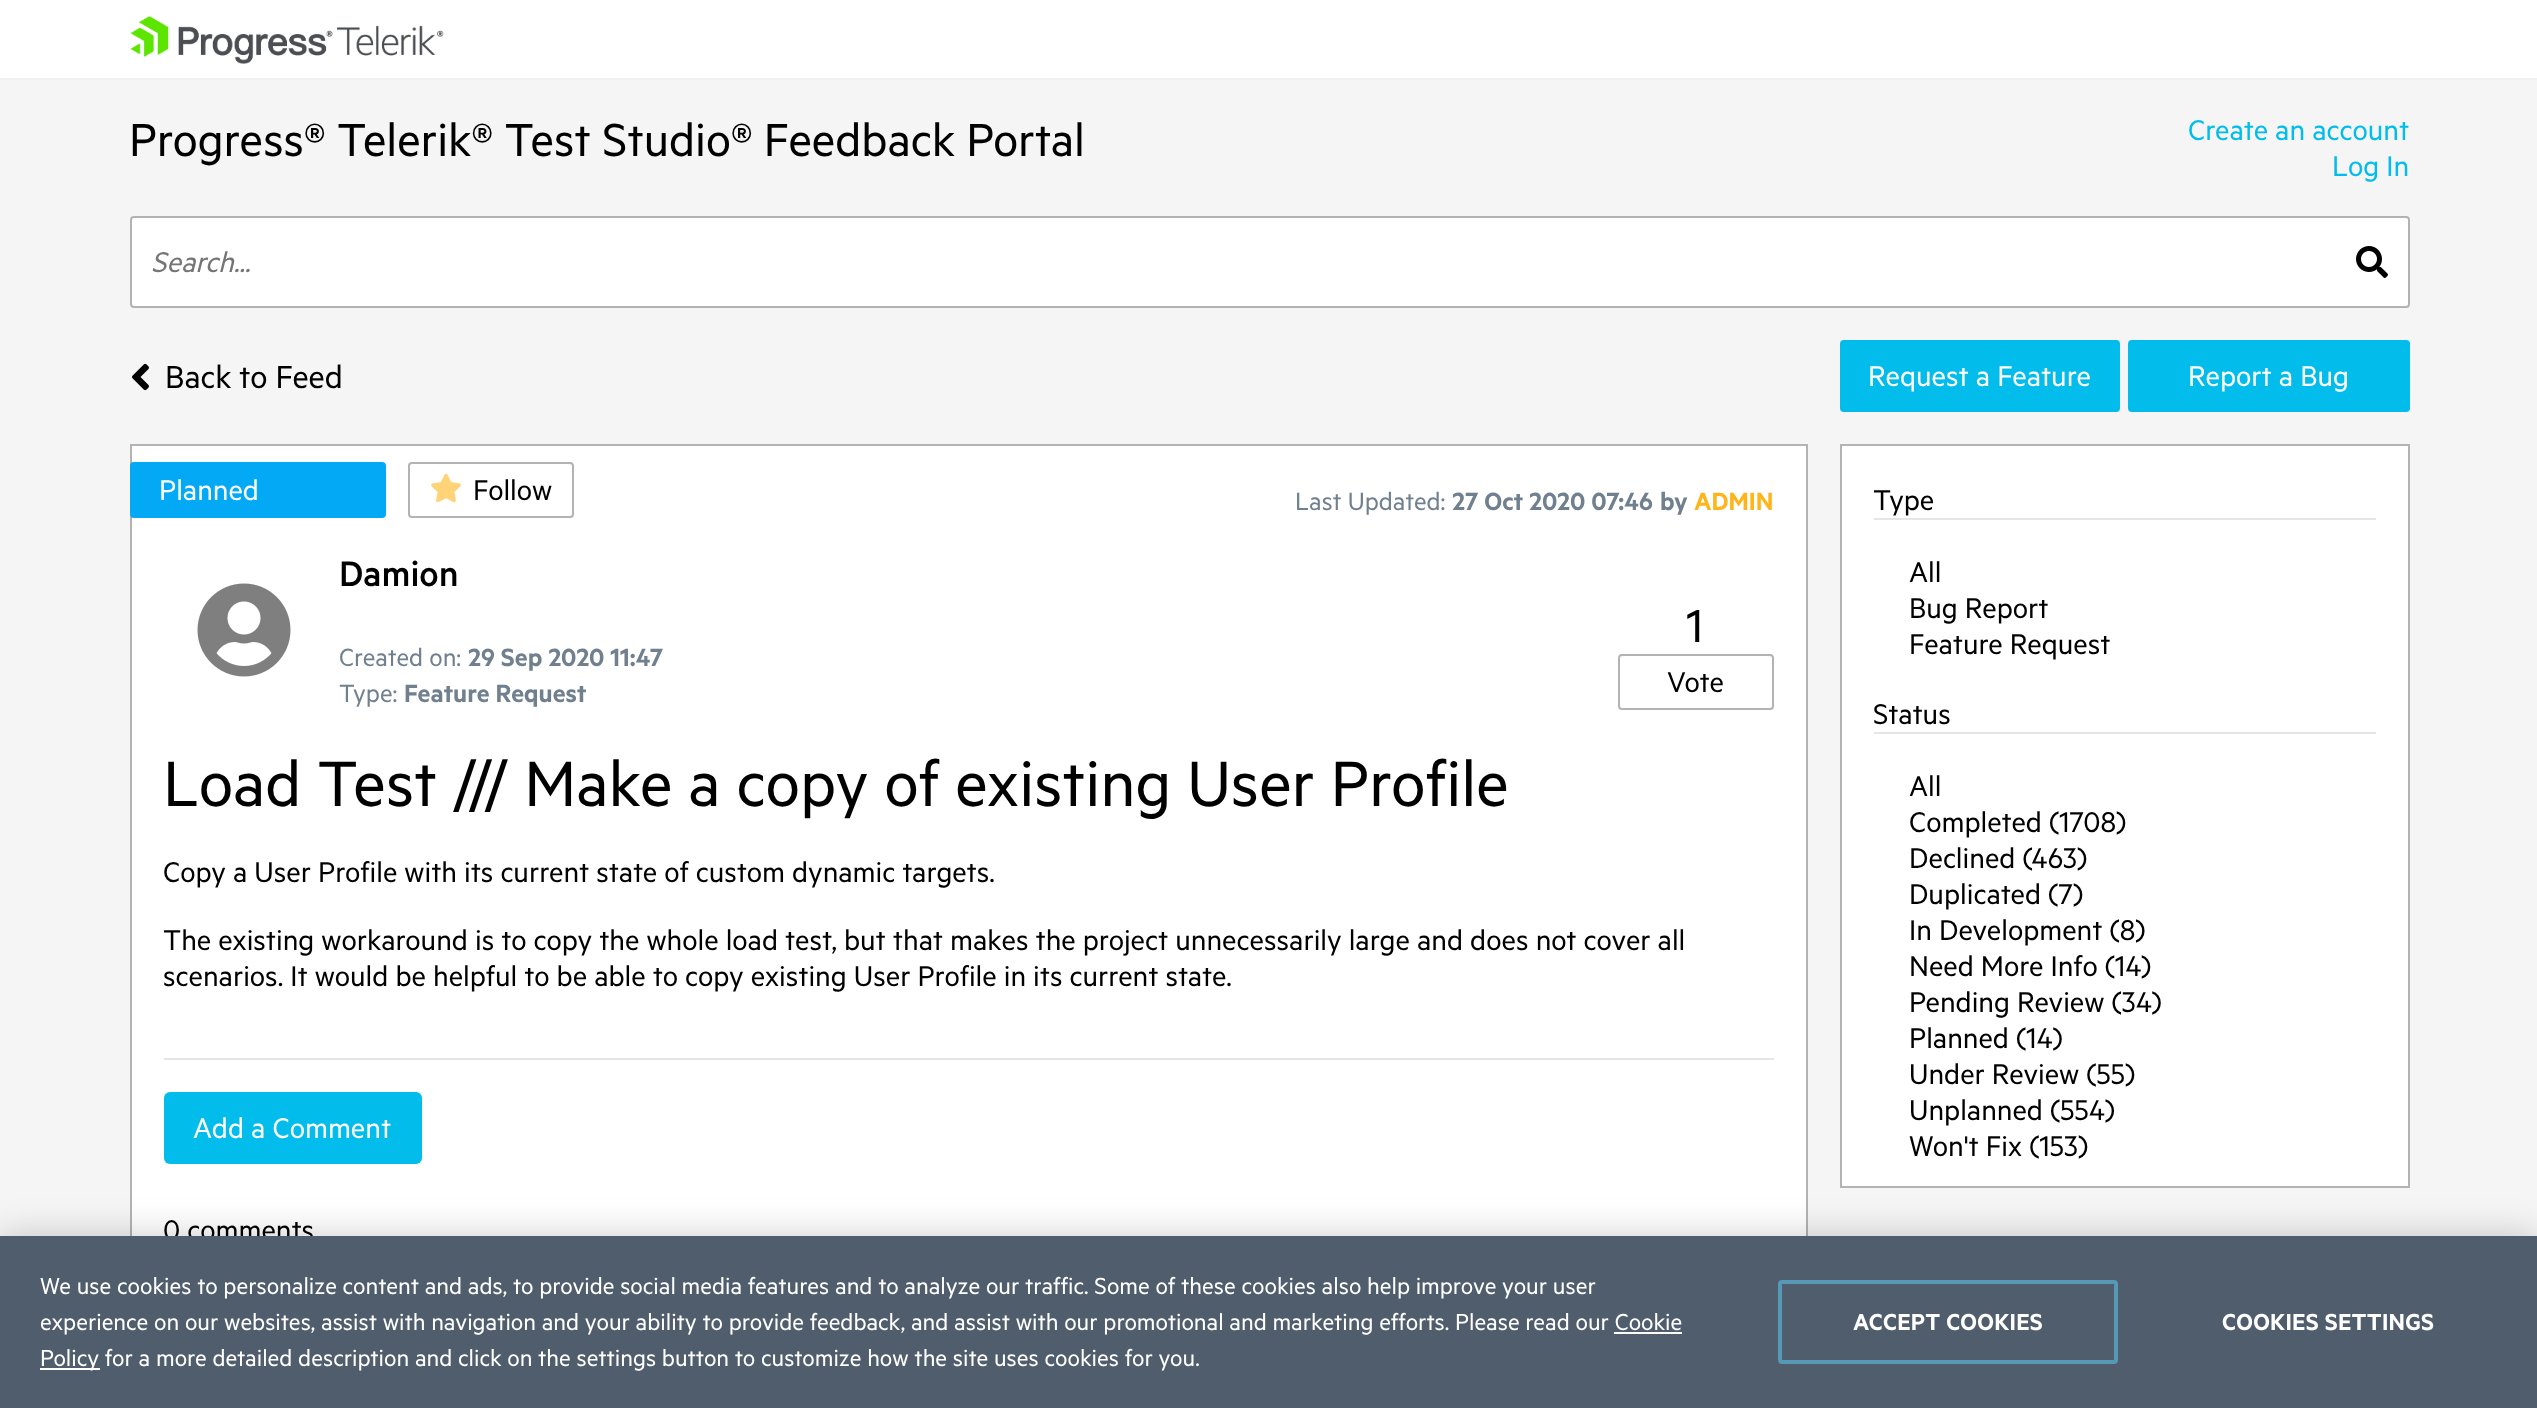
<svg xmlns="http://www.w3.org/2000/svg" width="2537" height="1408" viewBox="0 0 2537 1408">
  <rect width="100%" height="100%" fill="rgb(245,245,245)"/>
  <rect x="0" y="0" width="2537" height="78" fill="rgb(255,255,255)"/>
  <rect x="0" y="78" width="2537" height="2" fill="rgb(239,240,241)"/>
  <image x="130" y="16" width="314" height="48" href="pic1.png"/>
  <text x="129" y="156" font-family="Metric" font-size="52" fill="rgb(0,0,0)">Progress® Telerik® Test Studio® Feedback Portal</text>
  <g font-family="Metric" font-size="32" fill="rgb(2,188,235)">
    <text x="2188" y="140">Create an account</text>
    <text x="2332" y="176">Log In</text>
  </g>
  <rect x="130" y="216" width="2280" height="92" rx="4" fill="rgb(255,255,255)"/>
  <rect x="131" y="217" width="2278" height="90" rx="3" fill="none" stroke="rgba(0,0,0,0.3)" stroke-width="2"/>
  <text x="151" y="272" font-family="Metric" font-size="32" font-style="italic" fill="rgb(117,117,117)">Search...</text>
  <image x="2356" y="246" width="32" height="32" href="pic2.png"/>
  <image x="132" y="363" width="17" height="28" href="pic3.png"/>
  <text x="165" y="388" font-family="Metric" font-size="36" fill="rgb(0,0,0)">Back to Feed</text>
  <rect x="1840" y="340" width="280" height="72" rx="4" fill="rgb(2,188,235)"/>
  <text x="1868" y="386" font-family="Metric" font-size="32" fill="rgb(255,255,255)">Request a Feature</text>
  <rect x="2128" y="340" width="282" height="72" rx="4" fill="rgb(2,188,235)"/>
  <text x="2188" y="386" font-family="Metric" font-size="32" fill="rgb(255,255,255)">Report a Bug</text>
  <rect x="132" y="446" width="1674" height="790" fill="rgb(255,255,255)"/>
  <rect x="131" y="445" width="1676" height="854" fill="none" stroke="rgb(179,179,179)" stroke-width="2"/>
  <rect x="130" y="462" width="256" height="56" rx="4" fill="rgb(3,169,244)"/>
  <text x="159" y="500" font-family="Metric" font-size="32" fill="rgb(255,255,255)">Planned</text>
  <rect x="409" y="463" width="164" height="54" rx="3" fill="none" stroke="rgb(179,179,179)" stroke-width="2"/>
  <image x="431" y="473" width="30" height="30" href="pic4.png"/>
  <text x="473" y="500" font-family="Metric" font-size="32" fill="rgb(0,0,0)">Follow</text>
  <text x="1295" y="510" font-family="Metric" font-size="28" fill="rgb(113,128,143)">Last Updated:</text>
  <g font-family="Metric" font-size="28" font-weight="600" fill="rgb(113,128,143)">
    <text x="1452" y="510">27 Oct 2020 07:46</text>
    <text x="1660" y="510">by</text>
  </g>
  <text x="1694" y="510" font-family="Metric" font-size="28" font-weight="600" fill="rgb(255,180,25)">ADMIN</text>
  <image x="197" y="583" width="94" height="94" href="pic5.png"/>
  <text x="339" y="586" font-family="Metric" font-size="40" font-weight="500" fill="rgb(0,0,0)">Damion</text>
  <text x="339" y="666" font-family="Metric" font-size="28" fill="rgb(113,128,143)">Created on:</text>
  <text x="468" y="666" font-family="Metric" font-size="28" font-weight="600" fill="rgb(113,128,143)">29 Sep 2020 11:47</text>
  <text x="339" y="702" font-family="Metric" font-size="28" fill="rgb(113,128,143)">Type:</text>
  <text x="404" y="702" font-family="Metric" font-size="28" font-weight="600" fill="rgb(113,128,143)">Feature Request</text>
  <text x="1686" y="642" font-family="Metric" font-size="52" fill="rgb(0,0,0)">1</text>
  <rect x="1619" y="655" width="154" height="54" rx="3" fill="none" stroke="rgb(179,179,179)" stroke-width="2"/>
  <text x="1667" y="692" font-family="Metric" font-size="32" fill="rgb(0,0,0)">Vote</text>
  <text x="163" y="806" font-family="Metric" font-size="72" fill="rgb(0,0,0)">Load Test /// Make a copy of existing User Profile</text>
  <rect x="164" y="1058" width="1610" height="2" fill="rgb(230,230,230)"/>
  <g font-family="Metric" font-size="32" fill="rgb(0,0,0)">
    <text x="163" y="882">Copy a User Profile with its current state of custom dynamic targets.</text>
    <text>
      <tspan x="163" y="950">The existing workaround is to copy the whole load test, but that makes the project unnecessarily large and does not cover all</tspan>
      <tspan x="163" y="986">scenarios. It would be helpful to be able to copy existing User Profile in its current state.</tspan>
    </text>
  </g>
  <rect x="164" y="1092" width="258" height="72" rx="6" fill="rgb(2,188,235)"/>
  <text x="193" y="1138" font-family="Metric" font-size="32" fill="rgb(255,255,255)">Add a Comment</text>
  <text x="163" y="1240" font-family="Metric" font-size="32" fill="rgb(0,0,0)">0 comments</text>
  <rect x="1841" y="445" width="568" height="742" fill="rgb(255,255,255)" stroke="rgb(179,179,179)" stroke-width="2"/>
  <rect x="1874" y="518" width="502" height="2" fill="rgb(230,230,230)"/>
  <g font-family="Metric" font-size="32" fill="rgb(0,0,0)">
    <text x="1873" y="510">Type</text>
    <text>
      <tspan x="1909" y="582">All</tspan>
      <tspan x="1909" y="618">Bug Report</tspan>
      <tspan x="1909" y="654">Feature Request</tspan>
    </text>
  </g>
  <rect x="1874" y="732" width="502" height="2" fill="rgb(230,230,230)"/>
  <g font-family="Metric" font-size="32" fill="rgb(0,0,0)">
    <text x="1873" y="724">Status</text>
    <text>
      <tspan x="1909" y="796">All</tspan>
      <tspan x="1909" y="832">Completed (1708)</tspan>
      <tspan x="1909" y="868">Declined (463)</tspan>
      <tspan x="1909" y="904">Duplicated (7)</tspan>
      <tspan x="1909" y="940">In Development (8)</tspan>
      <tspan x="1909" y="976">Need More Info (14)</tspan>
      <tspan x="1909" y="1012">Pending Review (34)</tspan>
      <tspan x="1909" y="1048">Planned (14)</tspan>
      <tspan x="1909" y="1084">Under Review (55)</tspan>
      <tspan x="1909" y="1120">Unplanned (554)</tspan>
      <tspan x="1909" y="1156">Won't Fix (153)</tspan>
    </text>
  </g>
  <rect x="0" y="1236" width="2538" height="172" fill="rgba(0,0,0,0.2)" filter="blur(18px)"/>
  <rect x="0" y="1236" width="2537" height="172" fill="rgb(79,93,108)"/>
  <g font-family="Metric" font-size="26" fill="rgb(255,255,255)">
    <text>
      <tspan x="40" y="1294">We use cookies to personalize content and ads, to provide social media features and to analyze our traffic. Some of these cookies also help improve your user</tspan>
      <tspan x="40" y="1330">experience on our websites, assist with navigation and your ability to provide feedback, and assist with our promotional and marketing efforts. Please read our Cookie</tspan>
    </text>
  </g>
  <rect x="40" y="1368" width="60" height="2" fill="rgb(255,255,255)"/>
  <text x="40" y="1366" font-family="Metric" font-size="26" fill="rgb(255,255,255)">Policy for a more detailed description and click on the settings button to customize how the site uses cookies for you.</text>
  <rect x="1614" y="1332" width="68" height="2" fill="rgb(255,255,255)"/>
  <rect x="1780" y="1282" width="336" height="80" rx="2" fill="none" stroke="rgb(86,153,182)" stroke-width="4"/>
  <g font-family="Metric" font-size="26" font-weight="600" letter-spacing="0.25" fill="rgb(255,255,255)">
    <text x="1853" y="1330">ACCEPT COOKIES</text>
    <text x="2222" y="1330">COOKIES SETTINGS</text>
  </g>
</svg>
